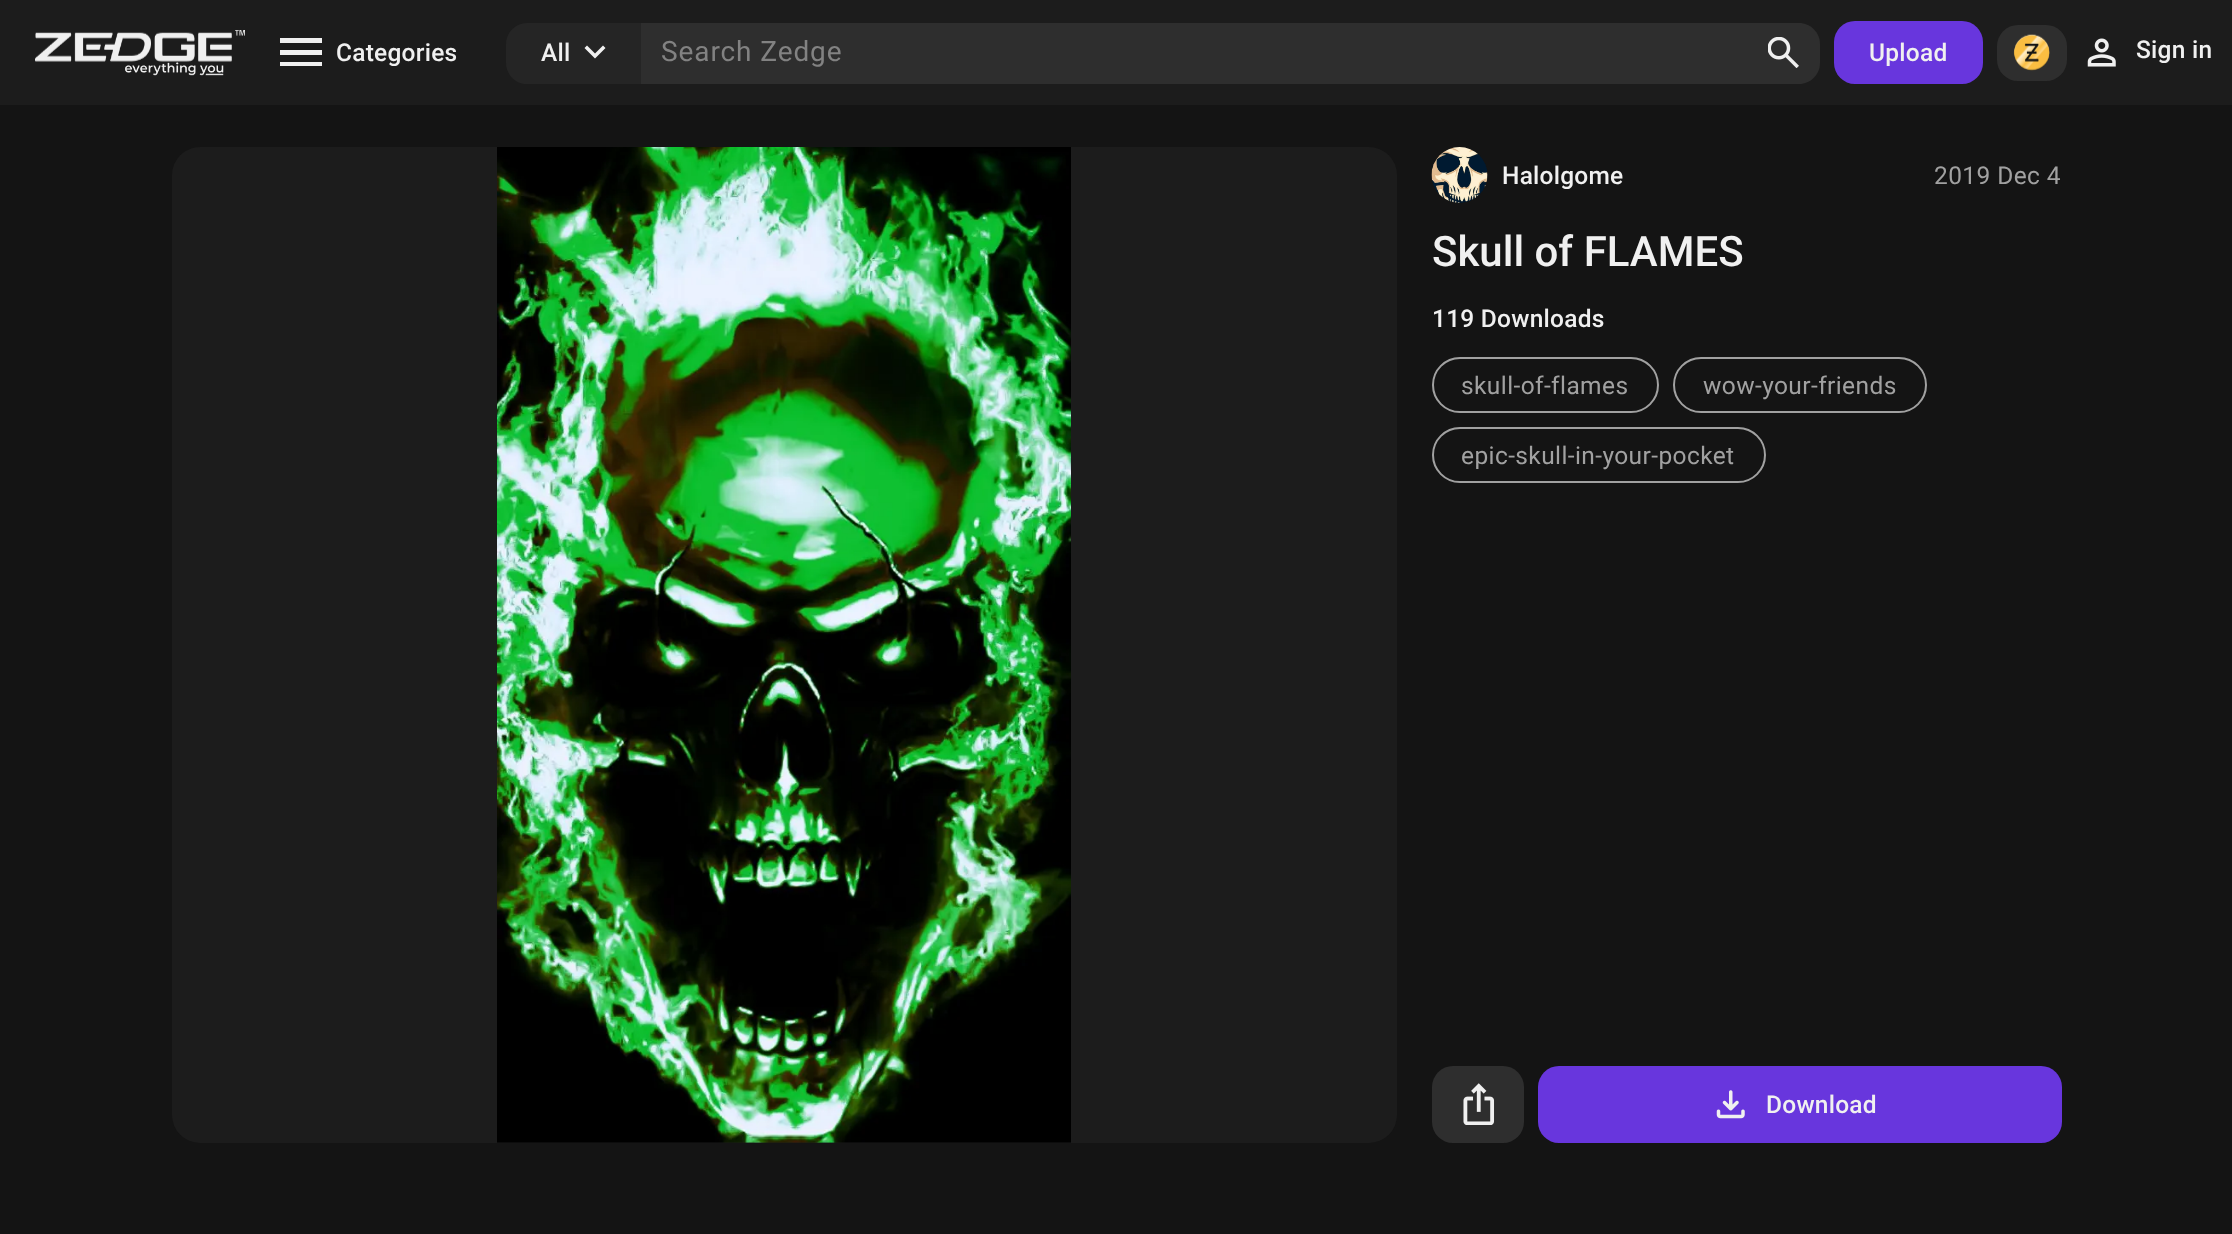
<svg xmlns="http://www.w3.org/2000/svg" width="2232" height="1234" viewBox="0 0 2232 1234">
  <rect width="100%" height="100%" fill="rgb(20,20,20)"/>
  <rect x="0" y="0" width="2232" height="105" fill="rgb(28,28,28)"/>
  <image x="35" y="30" width="210" height="32" href="pic1.png"/>
  <image x="125" y="62" width="99" height="14" href="pic2.png"/>
  <path d="M280 66V62H322V66ZM280 55V50H322V55ZM280 43V38H322V43Z" fill="rgb(240,240,240)"/>
  <text x="336" y="61" font-family="Roboto" font-size="24.5" font-weight="500" letter-spacing="0.25" fill="rgb(240,240,240)">Categories</text>
  <path d="M527 23H641V84H527C515.5 84 506 74.5 506 63V44C506 32.5 515.5 23 527 23Z" fill="rgb(37,37,37)"/>
  <text x="541" y="61" font-family="Roboto" font-size="24.5" font-weight="500" letter-spacing="0.25" fill="rgb(240,240,240)">All</text>
  <path d="M595 58.5L584.5 48L587 45.5L595 53.5L603 45.5L605.5 48Z" fill="rgb(240,240,240)"/>
  <path d="M641 23H1799C1810.5 23 1820 32.5 1820 44V63C1820 74.5 1810.5 84 1799 84H641Z" fill="rgb(46,46,46)"/>
  <text x="661" y="61" font-family="Roboto" font-size="28" letter-spacing="0.9" fill="rgb(130,130,130)">Search Zedge</text>
  <image x="1768" y="37" width="31" height="31" href="pic3.png"/>
  <rect x="1834" y="21" width="149" height="63" rx="21" fill="rgb(104,54,221)"/>
  <text x="1869" y="61" font-family="Roboto" font-size="24.5" font-weight="500" letter-spacing="0.25" fill="rgb(240,240,240)">Upload</text>
  <rect x="1997" y="25" width="70" height="56" rx="21" fill="rgb(46,46,46)"/>
  <image x="2013" y="34" width="37" height="37" href="pic4.png"/>
  <image x="2087" y="38" width="29" height="29" href="pic5.png"/>
  <text x="2136" y="58" font-family="Roboto" font-size="24.5" font-weight="500" letter-spacing="0.25" fill="rgb(240,240,240)">Sign in</text>
  <rect x="172" y="147" width="1225" height="996" rx="28" fill="rgb(28,28,28)"/>
  <image x="497" y="147" width="574" height="996" href="pic6.png"/>
  <image x="1431" y="147" width="57" height="56" href="pic7.png"/>
  <text x="1502" y="184" font-family="Roboto" font-size="24.5" font-weight="500" letter-spacing="0.25" fill="rgb(240,240,240)">Halolgome</text>
  <text x="1934" y="184" font-family="Roboto" font-size="24.5" letter-spacing="0.4" fill="rgb(161,161,161)">2019 Dec 4</text>
  <text x="1432" y="266" font-family="Roboto" font-size="42" font-weight="500" fill="rgb(240,240,240)">Skull of FLAMES</text>
  <text x="1432" y="327" font-family="Roboto" font-size="24.5" font-weight="500" letter-spacing="0.25" fill="rgb(240,240,240)">119 Downloads</text>
  <rect x="1433" y="358" width="225" height="54" rx="27" fill="none" stroke="rgb(161,161,161)" stroke-width="2"/>
  <text x="1461" y="394" font-family="Roboto" font-size="24.5" letter-spacing="0.4" fill="rgb(161,161,161)">skull-of-flames</text>
  <rect x="1674" y="358" width="252" height="54" rx="27" fill="none" stroke="rgb(161,161,161)" stroke-width="2"/>
  <text x="1703" y="394" font-family="Roboto" font-size="24.5" letter-spacing="0.4" fill="rgb(161,161,161)">wow-your-friends</text>
  <rect x="1433" y="428" width="332" height="54" rx="27" fill="none" stroke="rgb(161,161,161)" stroke-width="2"/>
  <text x="1461" y="464" font-family="Roboto" font-size="24.5" letter-spacing="0.4" fill="rgb(161,161,161)">epic-skull-in-your-pocket</text>
  <rect x="1432" y="1066" width="92" height="77" rx="21" fill="rgb(46,46,46)"/>
  <image x="1463" y="1083" width="32" height="42" href="pic8.png"/>
  <rect x="1538" y="1066" width="524" height="77" rx="21" fill="rgb(104,54,221)"/>
  <image x="1716" y="1090" width="29" height="29" href="pic9.png"/>
  <text x="1766" y="1113" font-family="Roboto" font-size="24.5" font-weight="500" letter-spacing="0.25" fill="rgb(240,240,240)">Download</text>
</svg>
